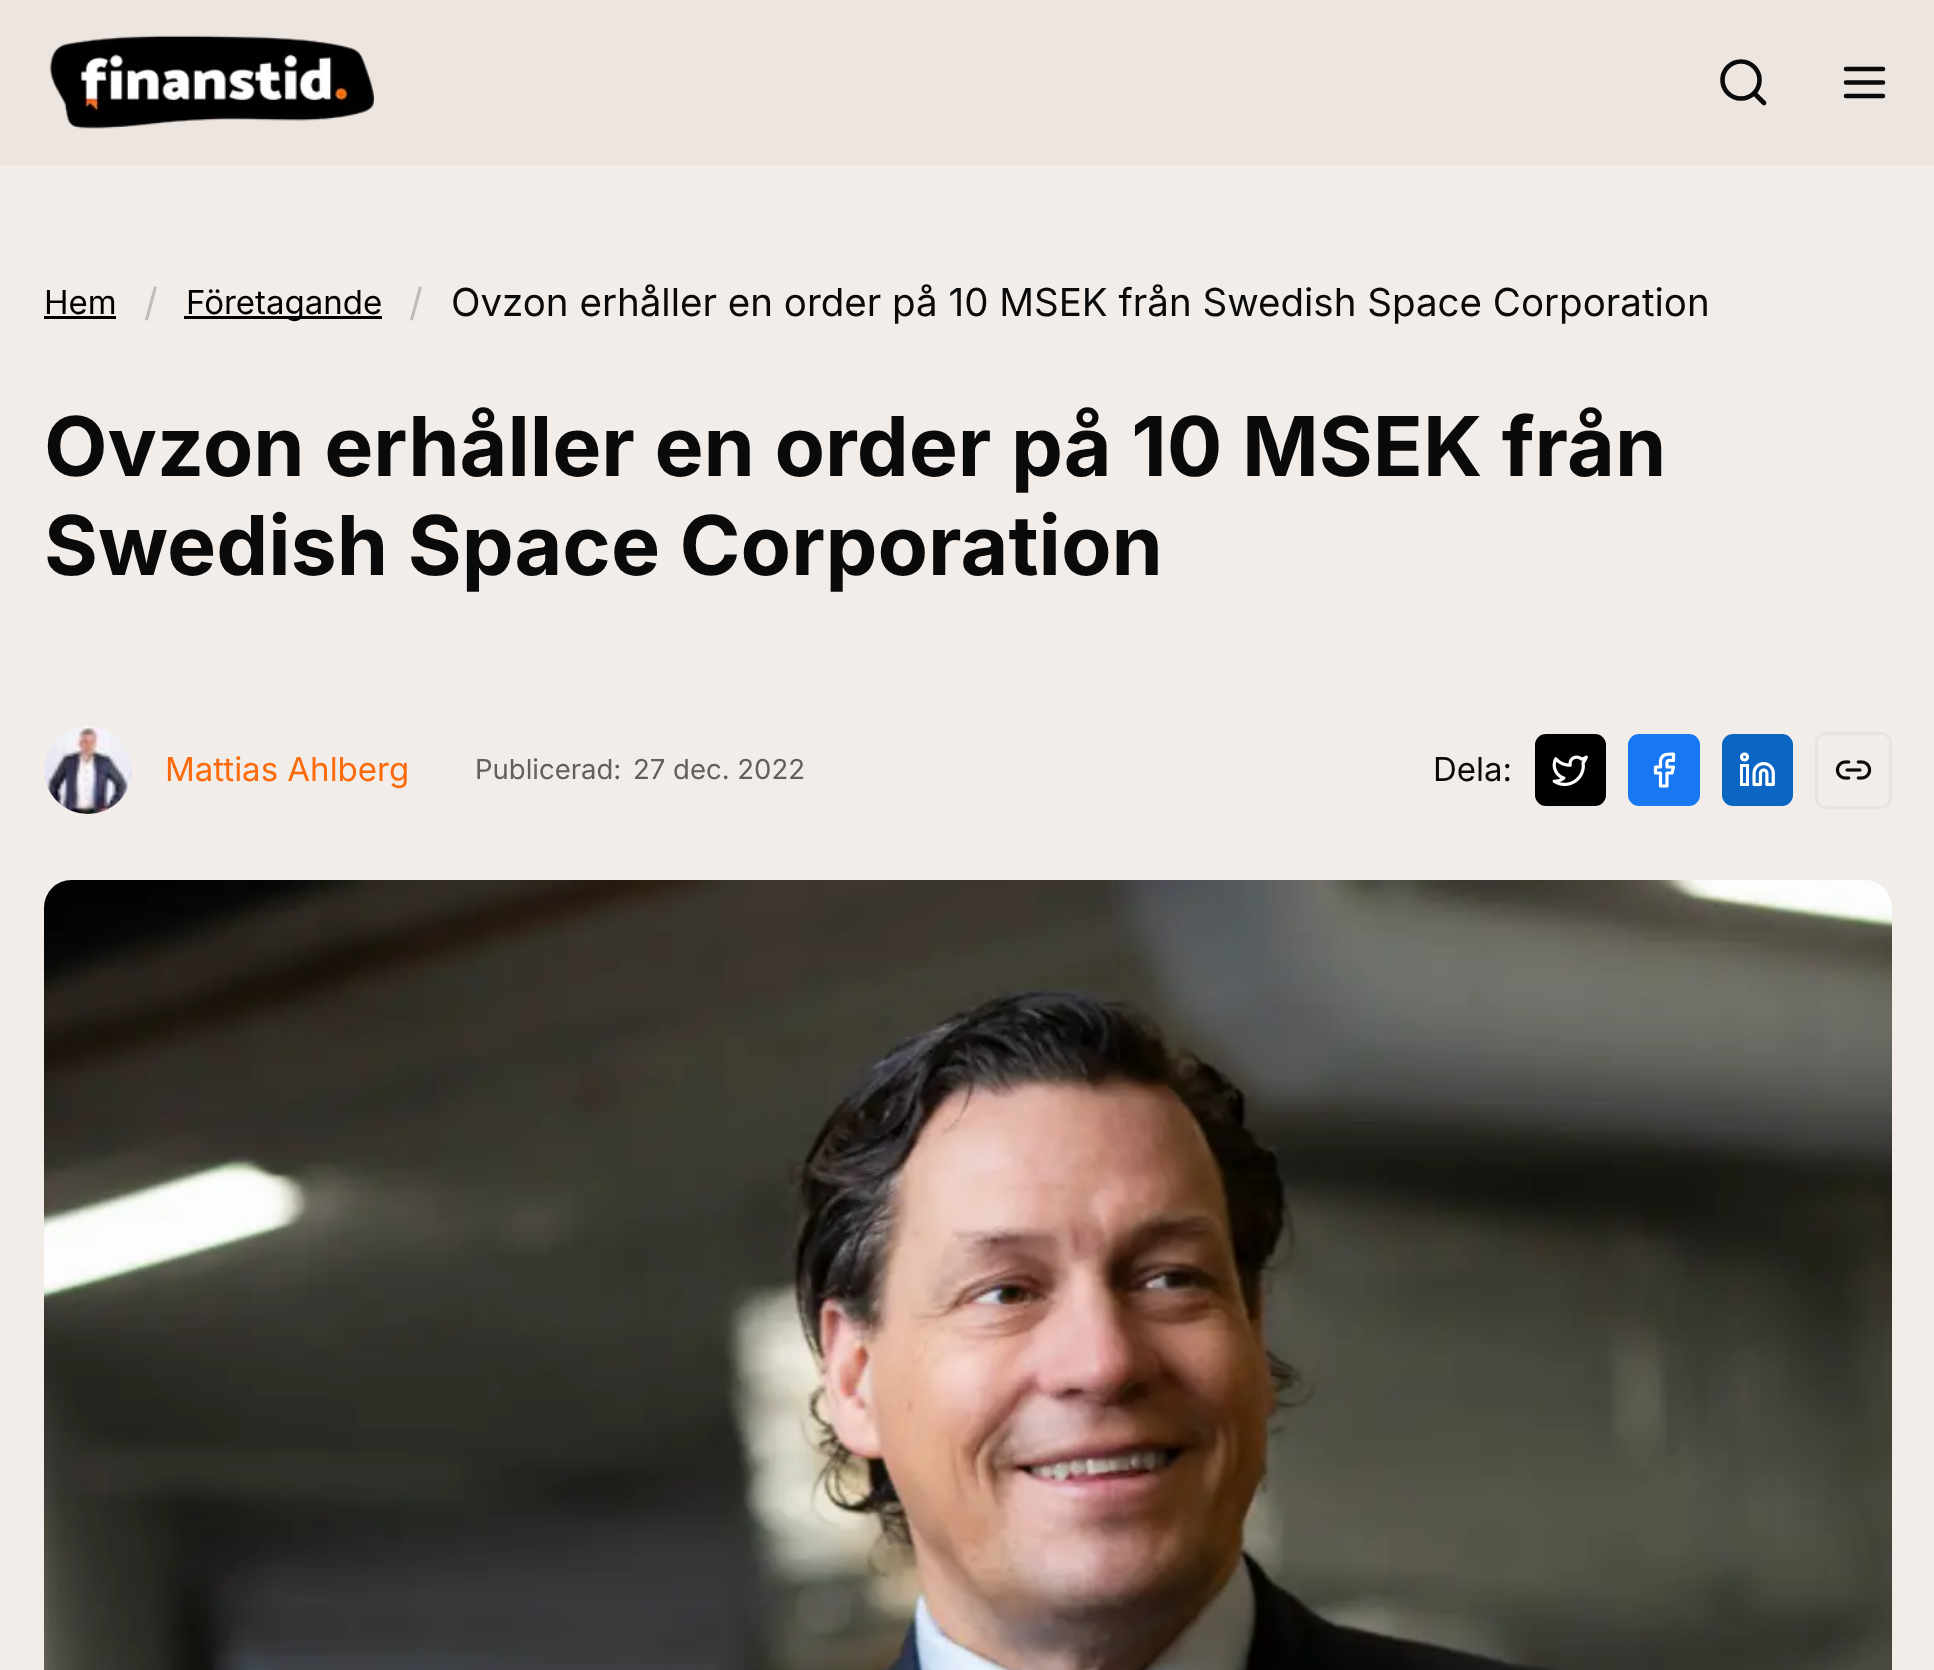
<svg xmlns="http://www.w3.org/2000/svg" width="1934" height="1670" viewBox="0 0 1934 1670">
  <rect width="100%" height="100%" fill="rgb(242,237,233)"/>
  <rect x="0" y="0" width="1934" height="165" fill="rgb(237,229,223)"/>
  <image x="49" y="35" width="325" height="94" href="pic1.png"/>
  <circle cx="1741" cy="80" r="18.5" fill="none" stroke="rgb(10,10,10)" stroke-width="4.6"/>
  <path d="M1764 103L1754.5 93.5" fill="none" stroke="rgb(10,10,10)" stroke-width="4.6" stroke-linecap="round" stroke-linejoin="round"/>
  <path d="M1846 82.5H1883M1846 69H1883M1846 96H1883" fill="none" stroke="rgb(10,10,10)" stroke-width="4.6" stroke-linecap="round" stroke-linejoin="round"/>
  <text x="44" y="314" font-family="Inter" font-size="33" fill="rgb(0,0,0)">Hem</text>
  <rect x="44" y="316" width="72" height="3" fill="rgb(0,0,0)"/>
  <text x="144" y="316" font-family="Inter" font-size="38.5" fill="rgb(189,189,189)">/</text>
  <rect x="184" y="316" width="198" height="3" fill="rgb(0,0,0)"/>
  <text x="186" y="314" font-family="Inter" font-size="33" fill="rgb(0,0,0)">Företagande</text>
  <text x="409" y="316" font-family="Inter" font-size="38.5" fill="rgb(189,189,189)">/</text>
  <text x="451" y="316" font-family="Inter" font-size="38.5" fill="rgb(10,10,10)">Ovzon erhåller en order på 10 MSEK från Swedish Space Corporation</text>
  <g font-family="Inter" font-size="82.5" font-weight="bold" fill="rgb(10,10,10)">
    <text>
      <tspan x="44" y="476">Ovzon erhåller en order på 10 MSEK från</tspan>
      <tspan x="44" y="575">Swedish Space Corporation</tspan>
    </text>
  </g>
  <image x="44" y="726" width="88" height="88" href="pic2.png"/>
  <text x="165" y="781" font-family="Inter" font-size="33" fill="rgb(251,106,11)">Mattias Ahlberg</text>
  <g font-family="Inter" font-size="27.5" fill="rgb(96,96,96)">
    <text x="475" y="779">Publicerad:</text>
    <text x="633" y="779">27 dec. 2022</text>
  </g>
  <text x="1433" y="781" font-family="Inter" font-size="33" fill="rgb(10,10,10)">Dela:</text>
  <rect x="1535" y="734" width="71" height="72" rx="11" fill="rgb(0,0,0)"/>
  <image x="1552" y="755" width="36" height="31" href="pic3.png"/>
  <rect x="1628" y="734" width="72" height="72" rx="11" fill="rgb(24,119,242)"/>
  <path d="M1673.5 754C1668 754 1662 753.5 1660.5 760.5V767H1655.5V773H1660.5V786H1667V773H1672L1673.5 767H1667C1667 759.5 1666 760.5 1673.5 760.5Z" fill="none" stroke="rgb(255,255,255)" stroke-width="3.2" stroke-linecap="round" stroke-linejoin="round"/>
  <rect x="1722" y="734" width="71" height="72" rx="11" fill="rgb(10,102,194)"/>
  <image x="1739" y="752" width="36" height="35" href="pic4.png"/>
  <rect x="1816.5" y="733.5" width="74" height="74" rx="9.5" fill="none" stroke="rgb(229,229,229)" stroke-width="3"/>
  <image x="1835" y="760" width="37" height="20" href="pic5.png"/>
  <image x="44" y="880" width="1848" height="790" href="pic6.png"/>
</svg>
